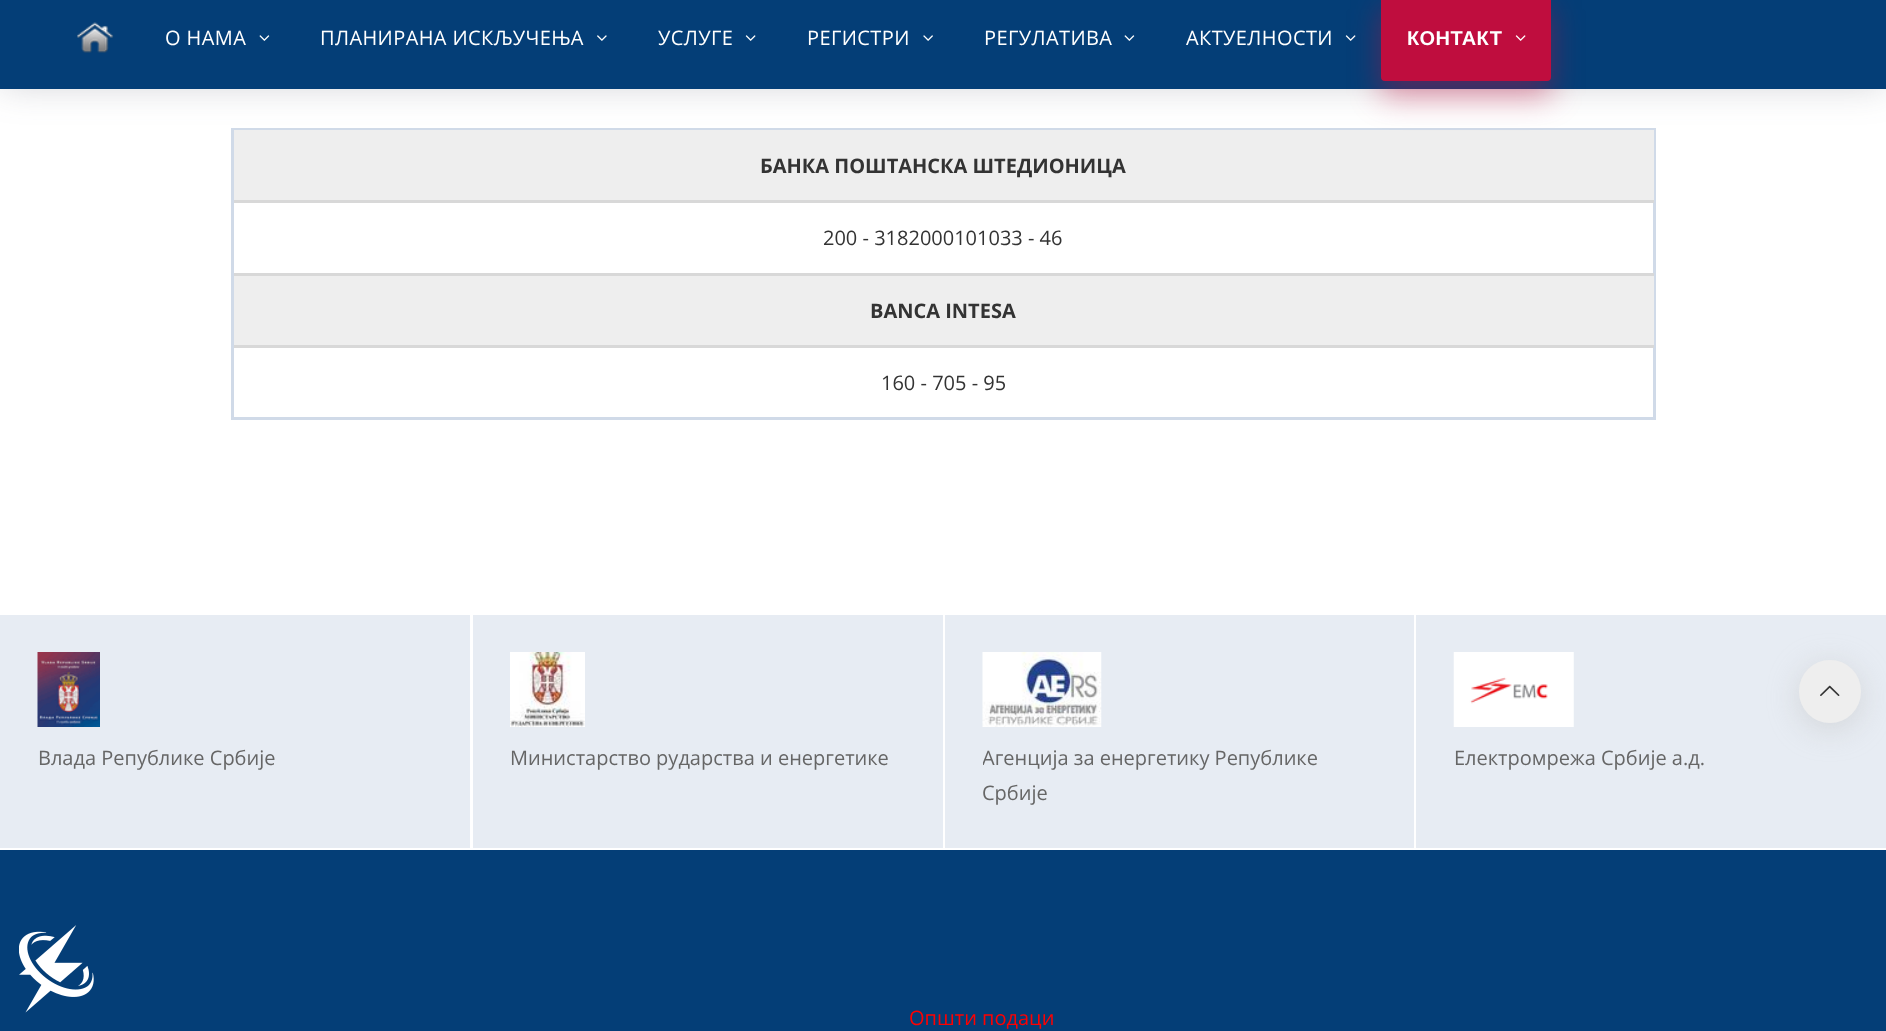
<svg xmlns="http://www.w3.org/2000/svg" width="1886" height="1031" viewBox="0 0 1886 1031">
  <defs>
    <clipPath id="clip1"><rect x="983" y="728" width="393" height="82"/></clipPath>
  </defs>
  <rect width="100%" height="100%" fill="rgb(255,255,255)"/>
  <rect x="232.5" y="129.5" width="1422" height="289" fill="none" stroke="rgb(208,218,232)" stroke-width="3"/>
  <rect x="234" y="130" width="1420" height="70" fill="rgb(238,238,238)"/>
  <rect x="0" y="-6" width="1886" height="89" fill="rgba(78,82,99,0.3)" filter="blur(19px)"/>
  <rect x="0" y="0" width="1886" height="89" fill="rgb(4,62,119)"/>
  <image x="77" y="22" width="37" height="31" href="pic1.png"/>
  <text x="165" y="45" font-family="Open Sans" font-size="20" letter-spacing="0.4" fill="rgb(255,255,255)">О НАМА</text>
  <image x="259" y="35" width="11" height="6" href="pic2.png"/>
  <text x="320" y="45" font-family="Open Sans" font-size="20" letter-spacing="0.4" fill="rgb(255,255,255)">ПЛАНИРАНА ИСКЉУЧЕЊА</text>
  <image x="597" y="35" width="10" height="6" href="pic3.png"/>
  <text x="658" y="45" font-family="Open Sans" font-size="20" letter-spacing="0.4" fill="rgb(255,255,255)">УСЛУГЕ</text>
  <image x="745" y="35" width="11" height="6" href="pic4.png"/>
  <text x="807" y="45" font-family="Open Sans" font-size="20" letter-spacing="0.4" fill="rgb(255,255,255)">РЕГИСТРИ</text>
  <image x="923" y="35" width="10" height="6" href="pic5.png"/>
  <text x="984" y="45" font-family="Open Sans" font-size="20" letter-spacing="0.4" fill="rgb(255,255,255)">РЕГУЛАТИВА</text>
  <image x="1124" y="35" width="11" height="6" href="pic2.png"/>
  <text x="1186" y="45" font-family="Open Sans" font-size="20" letter-spacing="0.4" fill="rgb(255,255,255)">АКТУЕЛНОСТИ</text>
  <image x="1345" y="35" width="11" height="6" href="pic4.png"/>
  <rect x="1381" y="9" width="170" height="87" rx="4" fill="rgba(191,13,62,0.43)" filter="blur(15.5px)"/>
  <rect x="1381" y="-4" width="170" height="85" rx="4" fill="rgb(191,13,62)"/>
  <text x="1407" y="45" font-family="Liberation Sans" font-size="20" font-weight="bold" letter-spacing="0.4" fill="rgb(255,255,255)">КОНТАКТ</text>
  <image x="1515" y="35" width="11" height="6" href="pic6.png"/>
  <rect x="234" y="200" width="1420" height="3" fill="rgb(216,216,216)"/>
  <text x="760" y="173" font-family="Open Sans" font-size="20" font-weight="bold" fill="rgb(51,51,51)">БАНКА ПОШТАНСКА ШТЕДИОНИЦА</text>
  <rect x="234" y="273" width="1420" height="3" fill="rgb(216,216,216)"/>
  <text x="823" y="245" font-family="Open Sans" font-size="20" fill="rgb(51,51,51)">200 - 3182000101033 - 46</text>
  <rect x="234" y="276" width="1420" height="69" fill="rgb(238,238,238)"/>
  <rect x="234" y="345" width="1420" height="3" fill="rgb(216,216,216)"/>
  <text x="870" y="318" font-family="Open Sans" font-size="20" font-weight="bold" fill="rgb(51,51,51)">BANCA INTESA</text>
  <text x="881" y="390" font-family="Open Sans" font-size="20" fill="rgb(51,51,51)">160 - 705 - 95</text>
  <rect x="0" y="615" width="470" height="233" fill="rgb(231,236,243)"/>
  <image x="37" y="652" width="63" height="75" href="pic7.png"/>
  <text x="38" y="765" font-family="Open Sans" font-size="20" fill="rgb(102,102,102)">Влада Републике Србије</text>
  <rect x="473" y="615" width="470" height="233" fill="rgb(231,236,243)"/>
  <image x="510" y="652" width="75" height="75" href="pic8.png"/>
  <text x="510" y="765" font-family="Open Sans" font-size="20" fill="rgb(102,102,102)">Министарство рударства и енергетике</text>
  <rect x="945" y="615" width="469" height="233" fill="rgb(231,236,243)"/>
  <image x="982" y="652" width="120" height="75" href="pic9.png"/>
  <g clip-path="url(#clip1)">
    <text x="982" y="765" font-family="Open Sans" font-size="20" fill="rgb(102,102,102)">Агенција за енергетику Републике</text>
  </g>
  <text x="982" y="800" font-family="Open Sans" font-size="20" fill="rgb(102,102,102)">Србије</text>
  <rect x="1416" y="615" width="470" height="233" fill="rgb(231,236,243)"/>
  <image x="1453" y="652" width="121" height="75" href="pic10.png"/>
  <text x="1454" y="765" font-family="Open Sans" font-size="20" fill="rgb(102,102,102)">Електромрежa Србије а.д.</text>
  <rect x="0" y="850" width="1886" height="181" fill="rgb(4,62,119)"/>
  <image x="19" y="925" width="75" height="88" href="pic11.png"/>
  <text x="909" y="1025" font-family="Open Sans" font-size="20" fill="rgb(255,0,0)">Општи подаци</text>
  <rect x="1799" y="666" width="62" height="63" rx="31" fill="rgba(187,187,187,0.45)" filter="blur(15.5px)"/>
  <rect x="1799" y="660" width="62" height="63" rx="31" fill="rgb(238,238,238)"/>
  <image x="1820" y="685" width="20" height="11" href="pic12.png"/>
</svg>
